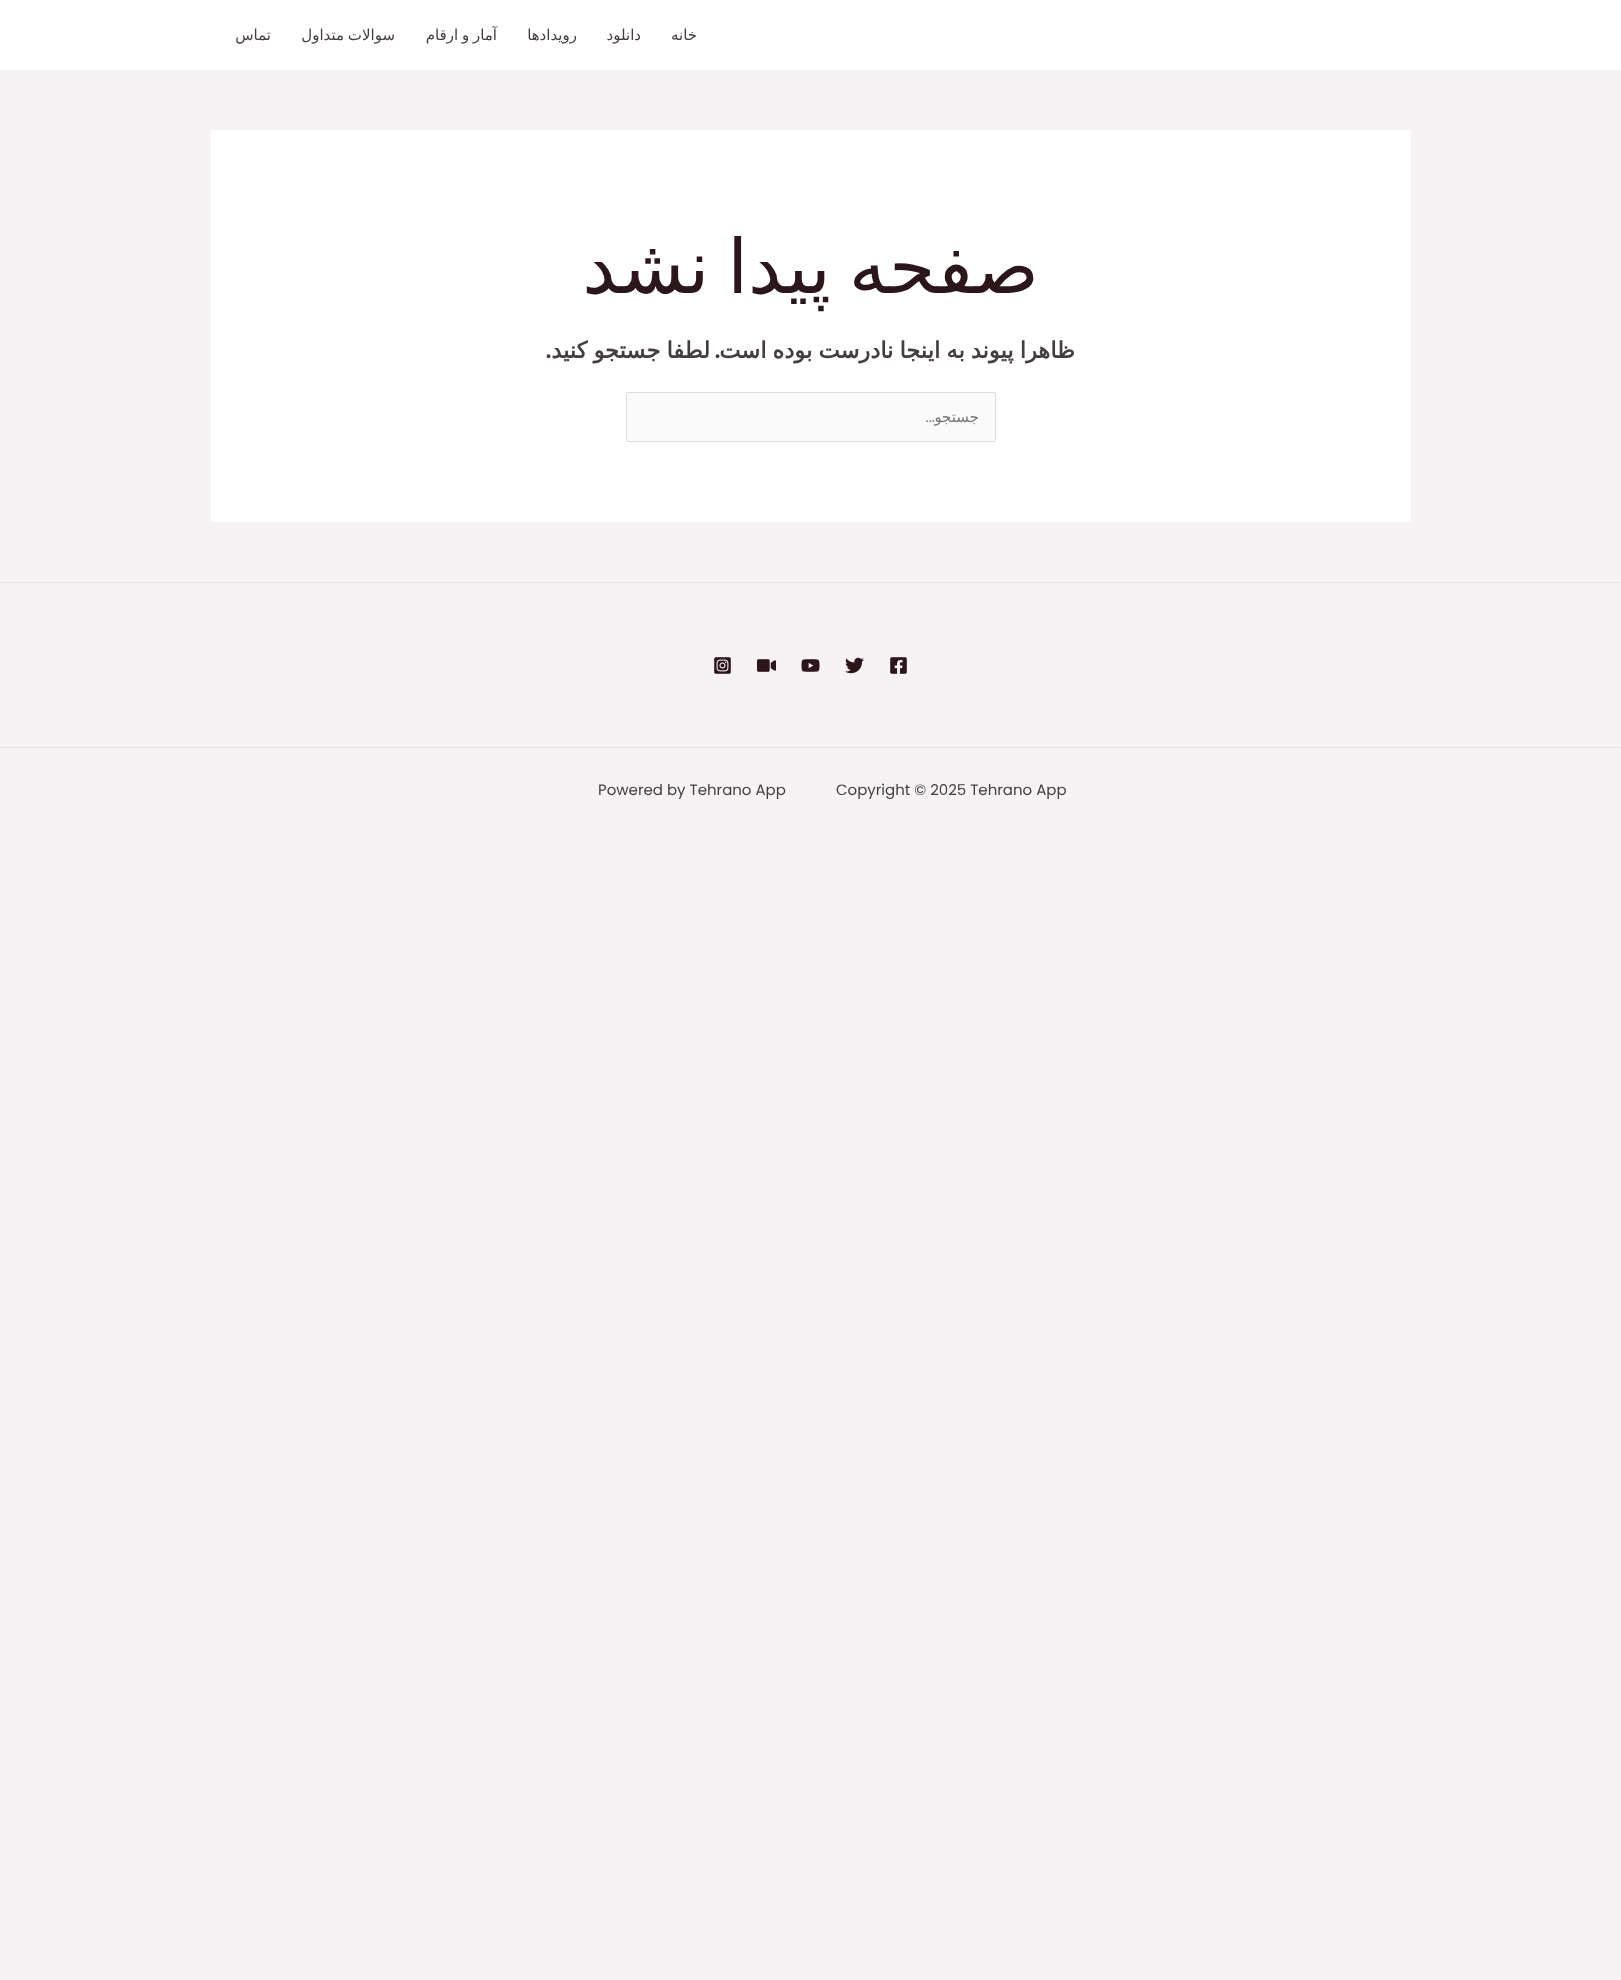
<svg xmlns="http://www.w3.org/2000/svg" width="1621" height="1980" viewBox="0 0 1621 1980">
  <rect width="100%" height="100%" fill="rgb(247,243,245)"/>
  <rect x="0" y="0" width="1621" height="70" fill="rgb(255,255,255)"/>
  <g font-family="DejaVu Sans" font-size="15" direction="rtl" fill="rgb(69,62,62)">
    <text x="697" y="40">خانه</text>
    <text x="641" y="40">دانلود</text>
    <text x="577" y="40">رویدادها</text>
    <text x="497" y="40" word-spacing="-1">آمار و ارقام</text>
    <text x="395" y="40" word-spacing="-1">سوالات متداول</text>
    <text x="271" y="40">تماس</text>
  </g>
  <rect x="211" y="130" width="1200" height="392" fill="rgb(255,255,255)"/>
  <text x="1039" y="293" word-spacing="-6" font-family="DejaVu Sans" font-size="75" direction="rtl" fill="rgb(43,22,27)">صفحه پیدا نشد</text>
  <text x="1075" y="358" word-spacing="-1" font-family="DejaVu Sans" font-size="22.5" font-weight="bold" direction="rtl" fill="rgb(69,62,62)">ظاهرا پیوند به اینجا نادرست بوده است</text>
  <text x="720" y="358" font-family="Poppins" font-size="22.5" font-weight="bold" direction="rtl" fill="rgb(69,62,62)">.</text>
  <text x="710" y="358" word-spacing="-1" font-family="DejaVu Sans" font-size="22.5" font-weight="bold" direction="rtl" fill="rgb(69,62,62)">لطفا جستجو کنید</text>
  <text x="551" y="358" font-family="Poppins" font-size="22.5" font-weight="bold" direction="rtl" fill="rgb(69,62,62)">.</text>
  <rect x="626.5" y="392.5" width="369" height="49" rx="1.5" fill="rgb(250,250,250)" stroke="rgb(221,221,221)"/>
  <text x="935" y="422" font-family="Poppins" font-size="15" direction="rtl" fill="rgb(117,117,117)">...</text>
  <text x="979" y="422" font-family="DejaVu Sans" font-size="15" direction="rtl" fill="rgb(117,117,117)">جستجو</text>
  <rect x="0" y="582" width="1621" height="1" fill="rgb(230,230,230)"/>
  <image x="890" y="657" width="17" height="17" href="pic1.png"/>
  <image x="845" y="657" width="19" height="17" href="pic2.png"/>
  <image x="801" y="659" width="19" height="13" href="pic3.png"/>
  <image x="757" y="659" width="19" height="13" href="pic4.png"/>
  <image x="714" y="657" width="17" height="17" href="pic5.png"/>
  <rect x="0" y="747" width="1621" height="1" fill="rgb(229,229,229)"/>
  <g font-family="Poppins" font-size="15" fill="rgb(69,62,62)">
    <text x="836" y="795">Copyright © 2025 Tehrano App</text>
    <text x="598" y="795">Powered by Tehrano App</text>
  </g>
</svg>
